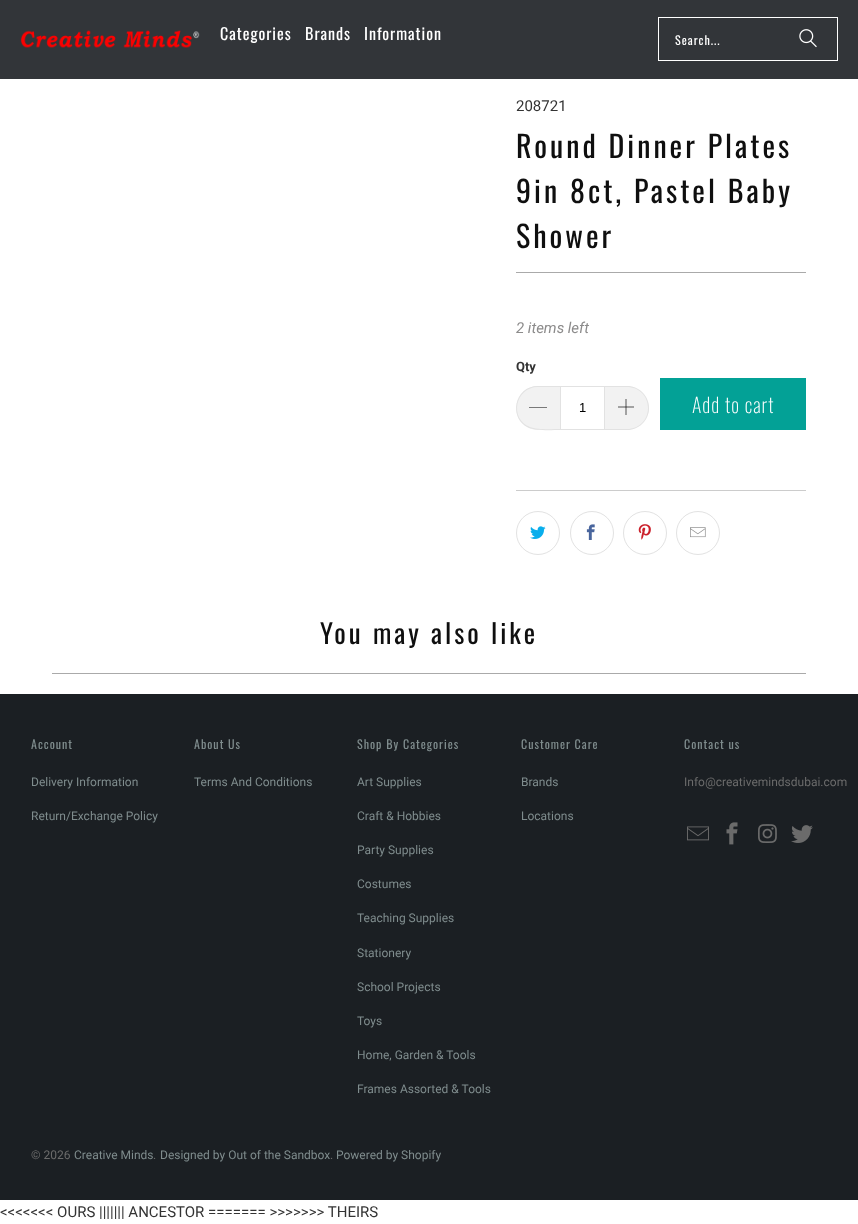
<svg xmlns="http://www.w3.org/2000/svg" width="858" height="1224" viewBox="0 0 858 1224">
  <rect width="100%" height="100%" fill="rgb(255,255,255)"/>
  <rect x="0" y="0" width="858" height="79" fill="rgb(50,53,57)"/>
  <image x="20" y="30" width="180" height="18" href="pic1.png"/>
  <g font-family="Oswald" font-size="16" letter-spacing="1" fill="rgb(255,255,255)">
    <text x="220" y="40">Categories</text>
    <text x="305" y="40">Brands</text>
    <text x="364" y="40">Information</text>
  </g>
  <rect x="658.5" y="17.5" width="179" height="43" fill="none" stroke="rgb(255,255,255)"/>
  <text x="675" y="45" font-family="Oswald" font-size="12" letter-spacing="1" fill="rgb(255,255,255)">Search...</text>
  <image x="799" y="29" width="18" height="19" href="pic2.png"/>
  <text x="516" y="111" font-family="Roboto" font-size="15" fill="rgb(51,51,51)">208721</text>
  <g font-family="Oswald" font-size="30" letter-spacing="3" fill="rgb(15,15,15)">
    <text>
      <tspan x="516" y="158">Round Dinner Plates</tspan>
      <tspan x="516" y="203">9in 8ct, Pastel Baby</tspan>
      <tspan x="516" y="248">Shower</tspan>
    </text>
  </g>
  <rect x="516" y="272" width="290" height="1" fill="rgb(170,170,170)"/>
  <text x="516" y="333" font-family="Roboto" font-size="15" font-style="italic" fill="rgb(140,139,139)">2 items left</text>
  <text x="516" y="371" font-family="Roboto" font-size="13" font-weight="bold" fill="rgb(51,51,51)">Qty</text>
  <path d="M538 386H560V430H538C526 430 516 420 516 408C516 396 526 386 538 386Z" fill="rgb(242,242,242)"/>
  <path d="M538 386H560V430C552 430 537 431 529 428C508 419 514 386 538 386ZM538 387H560V429C552 429 537 430 530 427C509 419 515 387 538 387Z" fill="rgb(226,226,226)" fill-rule="evenodd"/>
  <path d="M529 407H547V407.5H529Z" fill="rgb(0,0,0)"/>
  <rect x="560.5" y="386.5" width="44" height="43" fill="none" stroke="rgb(226,226,226)"/>
  <text x="579" y="412" font-family="Liberation Sans" font-size="13" fill="rgb(0,0,0)">1</text>
  <path d="M605 386H627C639 386 649 396 649 408C649 420 639 430 627 430H605Z" fill="rgb(242,242,242)"/>
  <path d="M605 386H627C639 386 649 396 649 408C649 420 639 430 627 430H605ZM605 387H627C639 387 648 396 648 408C648 420 639 429 627 429H605Z" fill="rgb(226,226,226)" fill-rule="evenodd"/>
  <image x="618" y="399" width="16" height="16" href="pic3.png"/>
  <rect x="660" y="378" width="146" height="52" fill="rgb(3,161,150)"/>
  <text x="692" y="413" font-family="Oswald" font-size="20" font-weight="200" letter-spacing="1" fill="rgb(255,255,255)">Add to cart</text>
  <rect x="516" y="490" width="290" height="1" fill="rgb(204,204,204)"/>
  <circle cx="538" cy="533" r="21.5" fill="none" stroke="rgb(226,226,226)"/>
  <image x="530" y="526" width="16" height="13" href="pic4.png"/>
  <circle cx="592" cy="533" r="21.5" fill="none" stroke="rgb(226,226,226)"/>
  <image x="586" y="524" width="9" height="16" href="pic5.png"/>
  <circle cx="645" cy="533" r="21.5" fill="none" stroke="rgb(226,226,226)"/>
  <image x="638" y="524" width="13" height="16" href="pic6.png"/>
  <circle cx="698" cy="533" r="21.5" fill="none" stroke="rgb(226,226,226)"/>
  <image x="690" y="527" width="16" height="11" href="pic7.png"/>
  <text x="320" y="644" font-family="Oswald" font-size="27" letter-spacing="3" fill="rgb(15,15,15)">You may also like</text>
  <rect x="52" y="673" width="754" height="1" fill="rgb(170,170,170)"/>
  <rect x="0" y="694" width="858" height="506" fill="rgb(27,31,35)"/>
  <text x="31" y="749" font-family="Oswald" font-size="12" letter-spacing="1" fill="rgb(127,140,141)">Account</text>
  <g font-family="Roboto" font-size="12" fill="rgb(127,140,141)">
    <text x="31" y="786">Delivery Information</text>
    <text x="31" y="820">Return/Exchange Policy</text>
  </g>
  <text x="194" y="749" font-family="Oswald" font-size="12" letter-spacing="1" fill="rgb(127,140,141)">About Us</text>
  <text x="194" y="786" font-family="Roboto" font-size="12" fill="rgb(127,140,141)">Terms And Conditions</text>
  <text x="357" y="749" font-family="Oswald" font-size="12" letter-spacing="1" fill="rgb(127,140,141)">Shop By Categories</text>
  <g font-family="Roboto" font-size="12" fill="rgb(127,140,141)">
    <text x="357" y="786">Art Supplies</text>
    <text x="357" y="820">Craft &amp; Hobbies</text>
    <text x="357" y="854">Party Supplies</text>
    <text x="357" y="888">Costumes</text>
    <text x="357" y="922">Teaching Supplies</text>
    <text x="357" y="957">Stationery</text>
    <text x="357" y="991">School Projects</text>
    <text x="357" y="1025">Toys</text>
    <text x="357" y="1059">Home, Garden &amp; Tools</text>
    <text x="357" y="1093">Frames Assorted &amp; Tools</text>
  </g>
  <text x="521" y="749" font-family="Oswald" font-size="12" letter-spacing="1" fill="rgb(127,140,141)">Customer Care</text>
  <g font-family="Roboto" font-size="12" fill="rgb(127,140,141)">
    <text x="521" y="786">Brands</text>
    <text x="521" y="820">Locations</text>
  </g>
  <text x="684" y="749" font-family="Oswald" font-size="12" letter-spacing="1" fill="rgb(127,140,141)">Contact us</text>
  <text x="684" y="786" font-family="Roboto" font-size="12" fill="rgb(107,107,107)">Info@creativemindsdubai.com</text>
  <image x="687" y="826" width="22" height="15" href="pic8.png"/>
  <image x="726" y="822" width="12" height="23" href="pic9.png"/>
  <image x="758" y="824" width="19" height="19" href="pic10.png"/>
  <image x="791" y="825" width="22" height="18" href="pic11.png"/>
  <text x="31" y="1159" font-family="Roboto" font-size="12" fill="rgb(107,107,107)">© 2026</text>
  <text x="74" y="1159" font-family="Roboto" font-size="12" fill="rgb(127,140,141)">Creative Minds</text>
  <text x="153" y="1159" font-family="Roboto" font-size="12" fill="rgb(107,107,107)">.</text>
  <text x="160" y="1159" font-family="Roboto" font-size="12" fill="rgb(127,140,141)">Designed by Out of the Sandbox</text>
  <text x="330" y="1159" font-family="Roboto" font-size="12" fill="rgb(107,107,107)">.</text>
  <text x="336" y="1159" font-family="Roboto" font-size="12" fill="rgb(127,140,141)">Powered by Shopify</text>
  <text x="0" y="1217" font-family="Roboto" font-size="15" fill="rgb(51,51,51)">&lt;&lt;&lt;&lt;&lt;&lt;&lt; OURS ||||||| ANCESTOR ======= &gt;&gt;&gt;&gt;&gt;&gt;&gt; THEIRS</text>
</svg>
